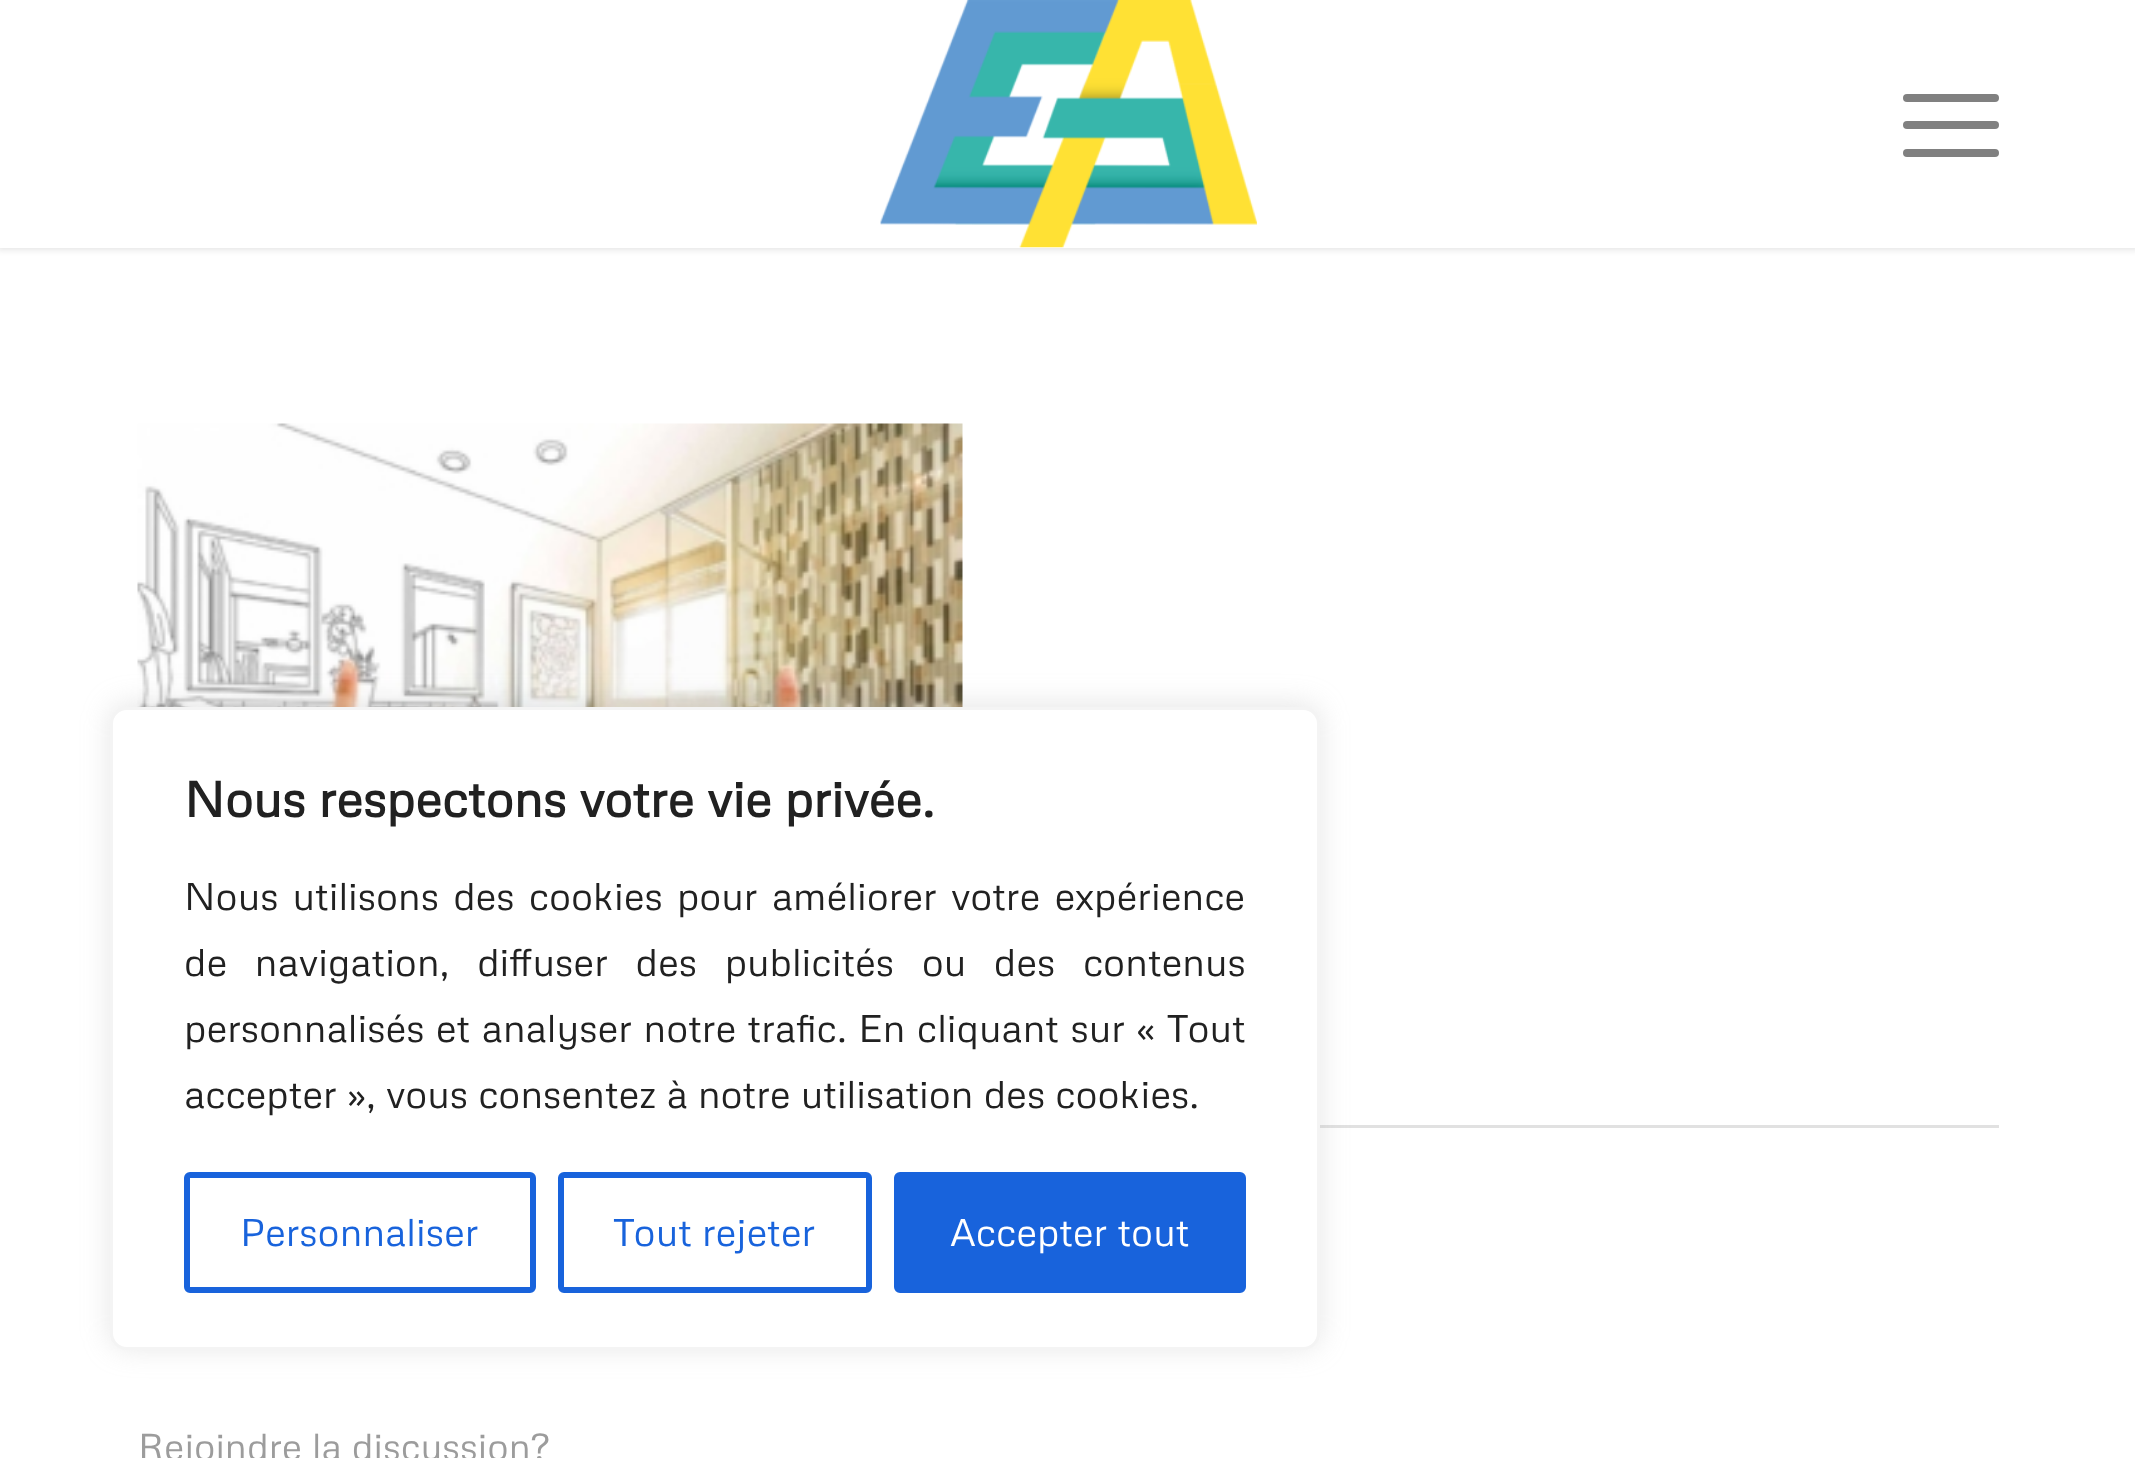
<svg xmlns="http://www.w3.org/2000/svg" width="2135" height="1458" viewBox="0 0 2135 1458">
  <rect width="100%" height="100%" fill="rgb(255,255,255)"/>
  <image x="137" y="423" width="826" height="284" href="pic2.png"/>
  <rect x="1320" y="1125" width="679" height="3" fill="rgb(225,225,225)"/>
  <rect x="110" y="704" width="1210" height="644" rx="17" fill="rgba(172,171,171,0.3)" filter="blur(14px)"/>
  <rect x="111.5" y="708.5" width="1207" height="640" rx="15.5" fill="rgb(255,255,255)" stroke="rgb(244,244,244)" stroke-width="3"/>
  <text x="184" y="817" font-family="Metrophobic" font-size="49.5" font-weight="bold" fill="rgb(33,33,33)">Nous respectons votre vie privée.</text>
  <g font-family="Metrophobic" font-size="38.5" fill="rgb(33,33,33)">
    <text>
      <tspan x="184" y="910" word-spacing="4">Nous utilisons des cookies pour améliorer votre expérience</tspan>
      <tspan x="184" y="976" word-spacing="17.5">de navigation, diffuser des publicités ou des contenus</tspan>
      <tspan x="184" y="1042" word-spacing="1.25">personnalisés et analyser notre trafic. En cliquant sur « Tout</tspan>
      <tspan x="184" y="1108">accepter », vous consentez à notre utilisation des cookies.</tspan>
    </text>
  </g>
  <rect x="187" y="1175" width="346" height="115" rx="3" fill="none" stroke="rgb(24,99,220)" stroke-width="6"/>
  <text x="240" y="1246" font-family="Metrophobic" font-size="38.5" fill="rgb(24,99,220)">Personnaliser</text>
  <rect x="561" y="1175" width="308" height="115" rx="3" fill="none" stroke="rgb(24,99,220)" stroke-width="6"/>
  <text x="613" y="1246" font-family="Metrophobic" font-size="38.5" fill="rgb(24,99,220)">Tout rejeter</text>
  <rect x="897" y="1175" width="346" height="115" rx="3" fill="rgb(24,99,220)" stroke="rgb(24,99,220)" stroke-width="6"/>
  <text x="950" y="1246" font-family="Metrophobic" font-size="38.5" fill="rgb(255,255,255)">Accepter tout</text>
  <rect x="-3" y="-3" width="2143" height="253" fill="rgba(0,0,0,0.1)" filter="blur(3px)"/>
  <rect x="0" y="0" width="2135" height="248" fill="rgb(255,255,255)"/>
  <image x="880" y="0" width="377" height="248" href="pic1.png"/>
  <rect x="1903" y="121" width="96" height="8" rx="4" fill="rgb(128,128,128)"/>
  <rect x="1903" y="94" width="96" height="8" rx="4" fill="rgb(128,128,128)"/>
  <rect x="1903" y="149" width="96" height="8" rx="4" fill="rgb(128,128,128)"/>
  <text x="138" y="1460" font-family="Metrophobic" font-size="37.4" fill="rgb(156,156,156)">Rejoindre la discussion?</text>
</svg>
